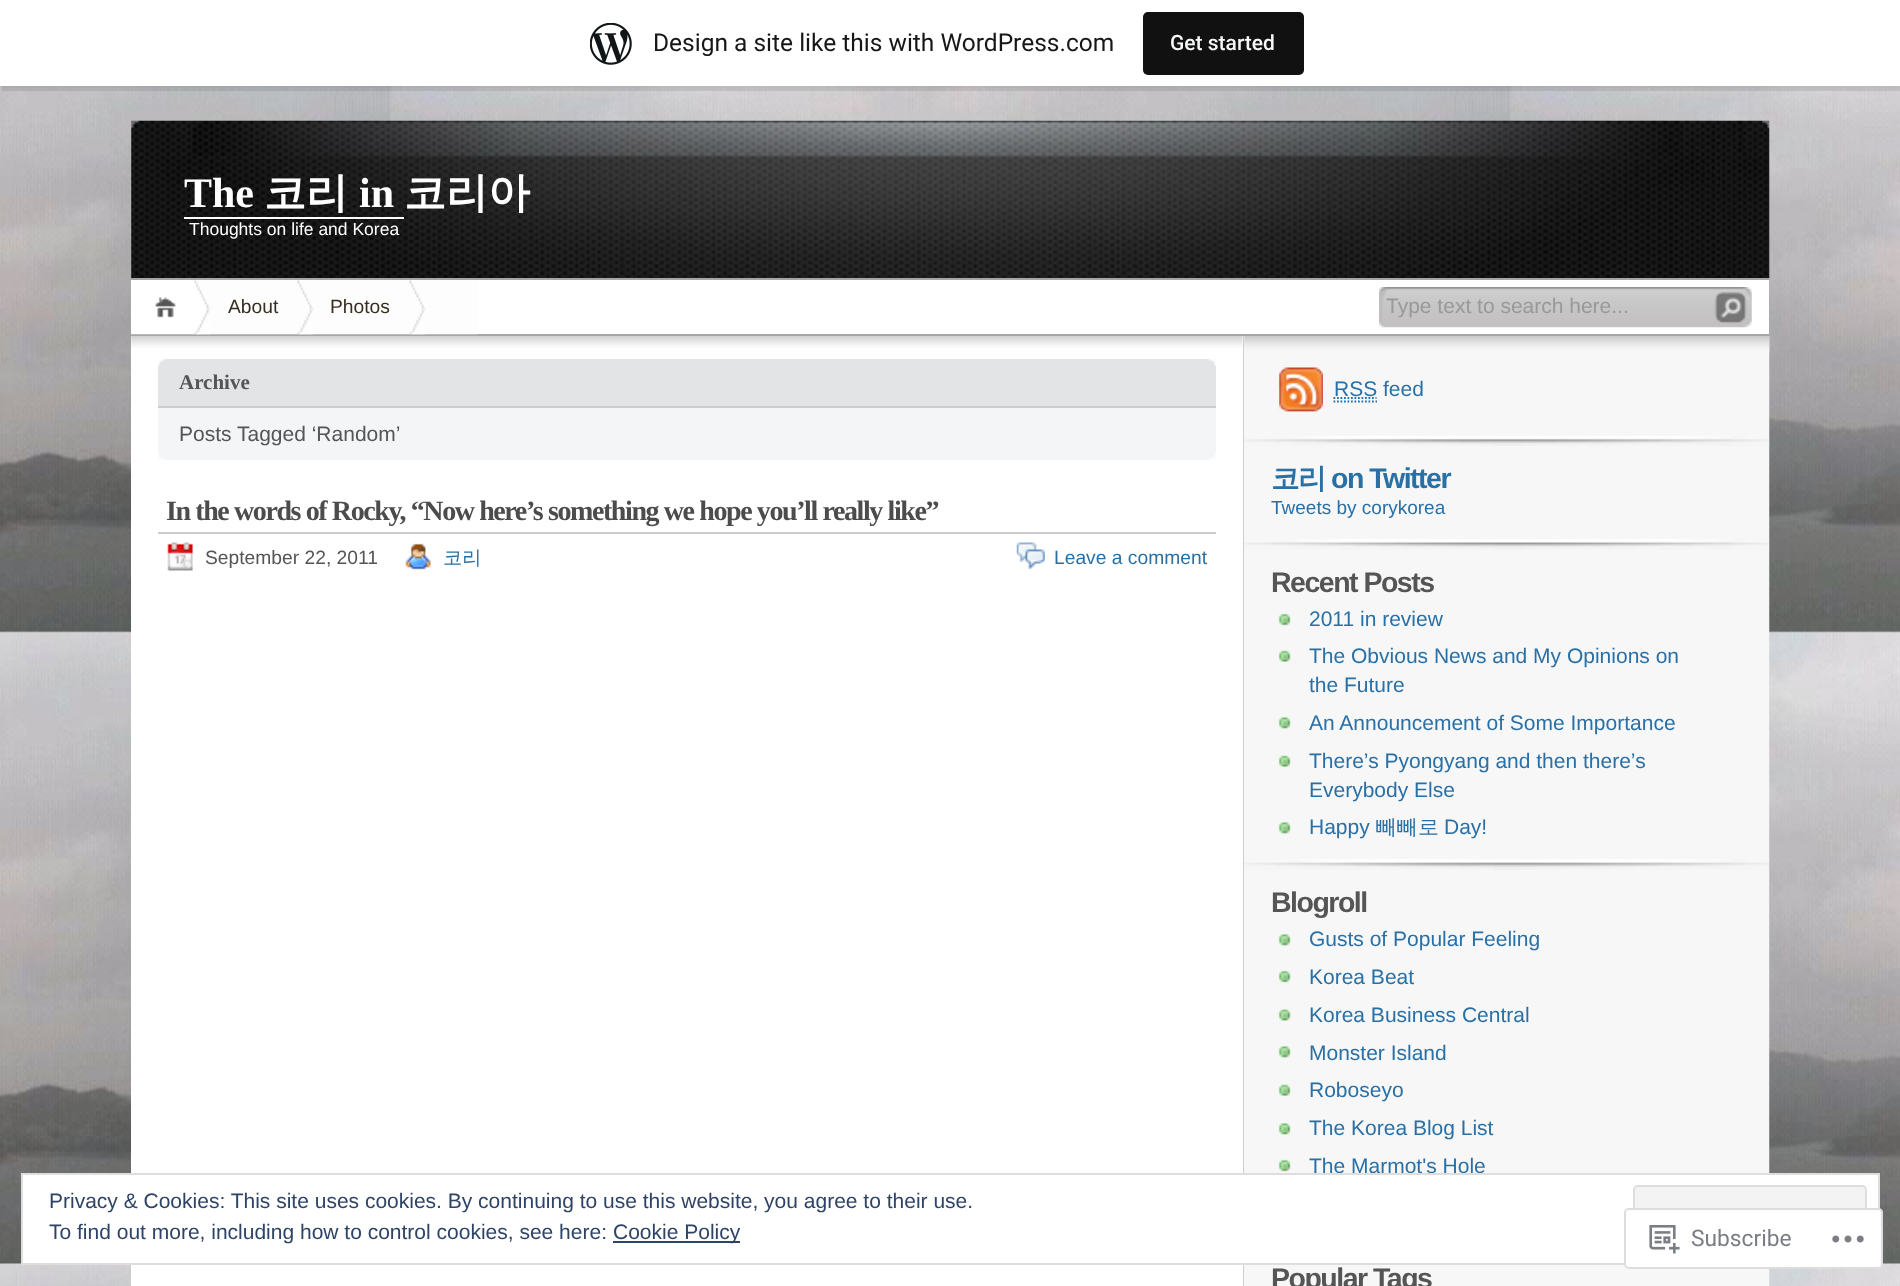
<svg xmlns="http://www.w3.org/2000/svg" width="1900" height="1286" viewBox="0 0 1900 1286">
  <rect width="100%" height="100%" fill="rgb(255,255,255)"/>
  <image x="0" y="86" width="1900" height="1200" href="pic1.png"/>
  <rect x="0" y="2" width="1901" height="86" fill="rgba(0,0,0,0.05)" filter="blur(2px)"/>
  <path d="M2 86V91H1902V5H1900V86Z" fill="rgba(0,0,0,0.08)"/>
  <rect x="0" y="0" width="1900" height="86" fill="rgb(255,255,255)"/>
  <image x="590" y="23" width="42" height="42" href="pic2.png"/>
  <text x="653" y="51" font-family="Roboto" font-size="24.5" fill="rgb(23,23,23)">Design a site like this with WordPress.com</text>
  <rect x="1143" y="12" width="161" height="63" rx="5" fill="rgb(17,17,17)"/>
  <text x="1170" y="50" font-family="Roboto" font-size="21" font-weight="500" fill="rgb(246,247,247)">Get started</text>
  <image x="131" y="120" width="1639" height="159" href="pic3.png"/>
  <rect x="131" y="278" width="1638" height="2" fill="rgb(166,166,166)"/>
  <text x="184" y="207" font-family="Liberation Serif" font-size="42" font-weight="bold" fill="rgb(255,255,255)">The</text>
  <text x="264" y="207" font-family="WenQuanYi Zen Hei" font-size="42" font-weight="bold" fill="rgb(255,255,255)">코리</text>
  <text x="359" y="207" font-family="Liberation Serif" font-size="42" font-weight="bold" fill="rgb(255,255,255)">in</text>
  <text x="404" y="207" font-family="WenQuanYi Zen Hei" font-size="42" font-weight="bold" fill="rgb(255,255,255)">코리아</text>
  <rect x="184" y="217" width="220" height="2" fill="rgb(255,255,255)"/>
  <text x="189" y="235" font-family="Liberation Sans" font-size="17.5" fill="rgb(255,255,255)">Thoughts on life and Korea</text>
  <rect x="131" y="280" width="1638" height="54" fill="rgb(255,255,255)"/>
  <rect x="131" y="334" width="1638" height="2" fill="rgb(166,166,166)"/>
  <image x="131" y="297" width="79" height="38" href="pic4.png"/>
  <image x="194" y="280" width="120" height="55" href="pic5.png"/>
  <text x="228" y="313" font-family="Liberation Sans" font-size="19.25" fill="rgb(56,46,31)">About</text>
  <image x="297" y="280" width="129" height="55" href="pic6.png"/>
  <text x="330" y="313" font-family="Liberation Sans" font-size="19.25" fill="rgb(56,46,31)">Photos</text>
  <image x="409" y="280" width="69" height="55" href="pic7.png"/>
  <image x="1379" y="287" width="373" height="41" href="pic8.png"/>
  <text x="1386" y="313" font-family="Liberation Sans" font-size="21" fill="rgb(153,153,153)">Type text to search here...</text>
  <image x="1243" y="336" width="527" height="950" href="pic9.png"/>
  <rect x="131" y="336" width="1112" height="950" fill="rgb(255,255,255)"/>
  <image x="131" y="336" width="1112" height="12" href="pic10.png"/>
  <rect x="158" y="359" width="1058" height="47" fill="rgb(227,228,230)"/>
  <image x="158" y="359" width="1058" height="7" href="pic11.png"/>
  <rect x="158" y="406" width="1058" height="2" fill="rgb(204,204,204)"/>
  <text x="179" y="389" font-family="Liberation Serif" font-size="21" font-weight="bold" fill="rgb(85,85,85)">Archive</text>
  <rect x="158" y="408" width="1058" height="52" fill="rgb(244,245,247)"/>
  <image x="158" y="453" width="1058" height="7" href="pic12.png"/>
  <text x="179" y="441" font-family="Liberation Sans" font-size="21" fill="rgb(85,85,85)">Posts Tagged ‘Random’</text>
  <rect x="158" y="532" width="1058" height="2" fill="rgb(204,204,204)"/>
  <text x="166" y="520" font-family="Liberation Serif" font-size="28" font-weight="bold" letter-spacing="-1.4" fill="rgb(76,76,76)">In the words of Rocky, “Now here’s something we hope you’ll really like”</text>
  <image x="167" y="542" width="26" height="29" href="pic13.png"/>
  <text x="205" y="564" font-family="Liberation Sans" font-size="19.25" fill="rgb(85,85,85)">September 22, 2011</text>
  <image x="405" y="543" width="26" height="27" href="pic14.png"/>
  <text x="443" y="564" font-family="WenQuanYi Zen Hei" font-size="19.25" font-weight="500" fill="rgb(41,112,166)">코리</text>
  <image x="1016" y="542" width="29" height="28" href="pic15.png"/>
  <text x="1054" y="564" font-family="Liberation Sans" font-size="19.25" fill="rgb(41,112,166)">Leave a comment</text>
  <rect x="1244" y="336" width="1" height="950" fill="rgb(247,247,247)"/>
  <image x="1244" y="336" width="526" height="16" href="pic16.png"/>
  <image x="1244" y="436" width="526" height="10" href="pic17.png"/>
  <image x="1279" y="367" width="44" height="45" href="pic18.png"/>
  <text x="1334" y="396" font-family="Liberation Sans" font-size="21" fill="rgb(41,112,166)">RSS feed</text>
  <path d="M1333.5 401.5H1377M1333.5 398H1376.5" fill="none" stroke="rgb(41,112,166)" stroke-width="1.8" stroke-dasharray="1.75 1.75"/>
  <image x="1244" y="539" width="526" height="11" href="pic19.png"/>
  <text x="1271" y="488" font-family="WenQuanYi Zen Hei" font-size="28.5" font-weight="bold" letter-spacing="-1.5" fill="rgb(41,112,166)">코리</text>
  <text x="1331" y="488" font-family="Liberation Sans" font-size="28.5" font-weight="bold" letter-spacing="-1.5" fill="rgb(41,112,166)">on Twitter</text>
  <text x="1271" y="514" font-family="Liberation Sans" font-size="19" fill="rgb(41,112,166)">Tweets by corykorea</text>
  <image x="1244" y="859" width="525" height="11" href="pic20.png"/>
  <text x="1271" y="592" font-family="Liberation Sans" font-size="28.5" font-weight="bold" letter-spacing="-1.5" fill="rgb(85,85,85)">Recent Posts</text>
  <image x="1278" y="613" width="13" height="13" href="pic21.png"/>
  <text x="1309" y="626" font-family="Liberation Sans" font-size="21" fill="rgb(41,112,166)">2011 in review</text>
  <image x="1278" y="650" width="13" height="12" href="pic22.png"/>
  <g font-family="Liberation Sans" font-size="21" fill="rgb(41,112,166)">
    <text>
      <tspan x="1309" y="663">The Obvious News and My Opinions on</tspan>
      <tspan x="1309" y="692">the Future</tspan>
    </text>
  </g>
  <image x="1278" y="717" width="13" height="12" href="pic23.png"/>
  <text x="1309" y="730" font-family="Liberation Sans" font-size="21" fill="rgb(41,112,166)">An Announcement of Some Importance</text>
  <image x="1278" y="755" width="13" height="12" href="pic22.png"/>
  <g font-family="Liberation Sans" font-size="21" fill="rgb(41,112,166)">
    <text>
      <tspan x="1309" y="768">There’s Pyongyang and then there’s</tspan>
      <tspan x="1309" y="797">Everybody Else</tspan>
    </text>
  </g>
  <image x="1278" y="822" width="13" height="12" href="pic23.png"/>
  <text x="1309" y="834" font-family="Liberation Sans" font-size="21" fill="rgb(41,112,166)">Happy</text>
  <text x="1376" y="834" font-family="WenQuanYi Zen Hei" font-size="21" font-weight="500" fill="rgb(41,112,166)">빼빼로</text>
  <text x="1444" y="834" font-family="Liberation Sans" font-size="21" fill="rgb(41,112,166)">Day!</text>
  <text x="1271" y="912" font-family="Liberation Sans" font-size="28.5" font-weight="bold" letter-spacing="-1.5" fill="rgb(85,85,85)">Blogroll</text>
  <image x="1278" y="934" width="13" height="12" href="pic23.png"/>
  <text x="1309" y="946" font-family="Liberation Sans" font-size="21" fill="rgb(41,112,166)">Gusts of Popular Feeling</text>
  <image x="1278" y="970" width="13" height="13" href="pic21.png"/>
  <text x="1309" y="984" font-family="Liberation Sans" font-size="21" fill="rgb(41,112,166)">Korea Beat</text>
  <image x="1278" y="1009" width="13" height="12" href="pic24.png"/>
  <text x="1309" y="1022" font-family="Liberation Sans" font-size="21" fill="rgb(41,112,166)">Korea Business Central</text>
  <image x="1278" y="1046" width="13" height="12" href="pic23.png"/>
  <text x="1309" y="1060" font-family="Liberation Sans" font-size="21" fill="rgb(41,112,166)">Monster Island</text>
  <image x="1278" y="1084" width="13" height="12" href="pic22.png"/>
  <text x="1309" y="1097" font-family="Liberation Sans" font-size="21" fill="rgb(41,112,166)">Roboseyo</text>
  <image x="1278" y="1123" width="13" height="12" href="pic23.png"/>
  <text x="1309" y="1135" font-family="Liberation Sans" font-size="21" fill="rgb(41,112,166)">The Korea Blog List</text>
  <image x="1278" y="1159" width="13" height="13" href="pic21.png"/>
  <text x="1309" y="1173" font-family="Liberation Sans" font-size="21" fill="rgb(41,112,166)">The Marmot's Hole</text>
  <text x="1271" y="1288" font-family="Liberation Sans" font-size="28.5" font-weight="bold" letter-spacing="-1.5" fill="rgb(85,85,85)">Popular Tags</text>
  <rect x="22" y="1174" width="1857" height="90" fill="rgb(255,255,255)" stroke="rgb(222,222,222)" stroke-width="2"/>
  <text x="49" y="1208" font-family="Liberation Sans" font-size="21" fill="rgb(46,68,103)">Privacy &amp; Cookies: This site uses cookies. By continuing to use this website, you agree to their use.</text>
  <rect x="1634" y="1186" width="232" height="66" rx="4" fill="rgb(243,243,243)" stroke="rgb(222,222,222)" stroke-width="2"/>
  <text x="49" y="1239" font-family="Liberation Sans" font-size="21" fill="rgb(46,68,103)">To find out more, including how to control cookies, see here:</text>
  <rect x="613" y="1241" width="127" height="2" fill="rgb(46,68,103)"/>
  <text x="613" y="1239" font-family="Liberation Sans" font-size="21" fill="rgb(46,68,103)">Cookie Policy</text>
  <rect x="1624" y="1208" width="259" height="61" rx="5" fill="rgba(255,255,255,0.98)"/>
  <rect x="1625" y="1209" width="257" height="59" rx="4" fill="none" stroke="rgba(220,220,222,0.98)" stroke-width="2"/>
  <image x="1649" y="1225" width="31" height="29" href="pic25.png"/>
  <text x="1691" y="1246" font-family="Roboto" font-size="22.75" fill="rgb(122,126,132)">Subscribe</text>
  <image x="1832" y="1235" width="32" height="8" href="pic26.png"/>
</svg>
